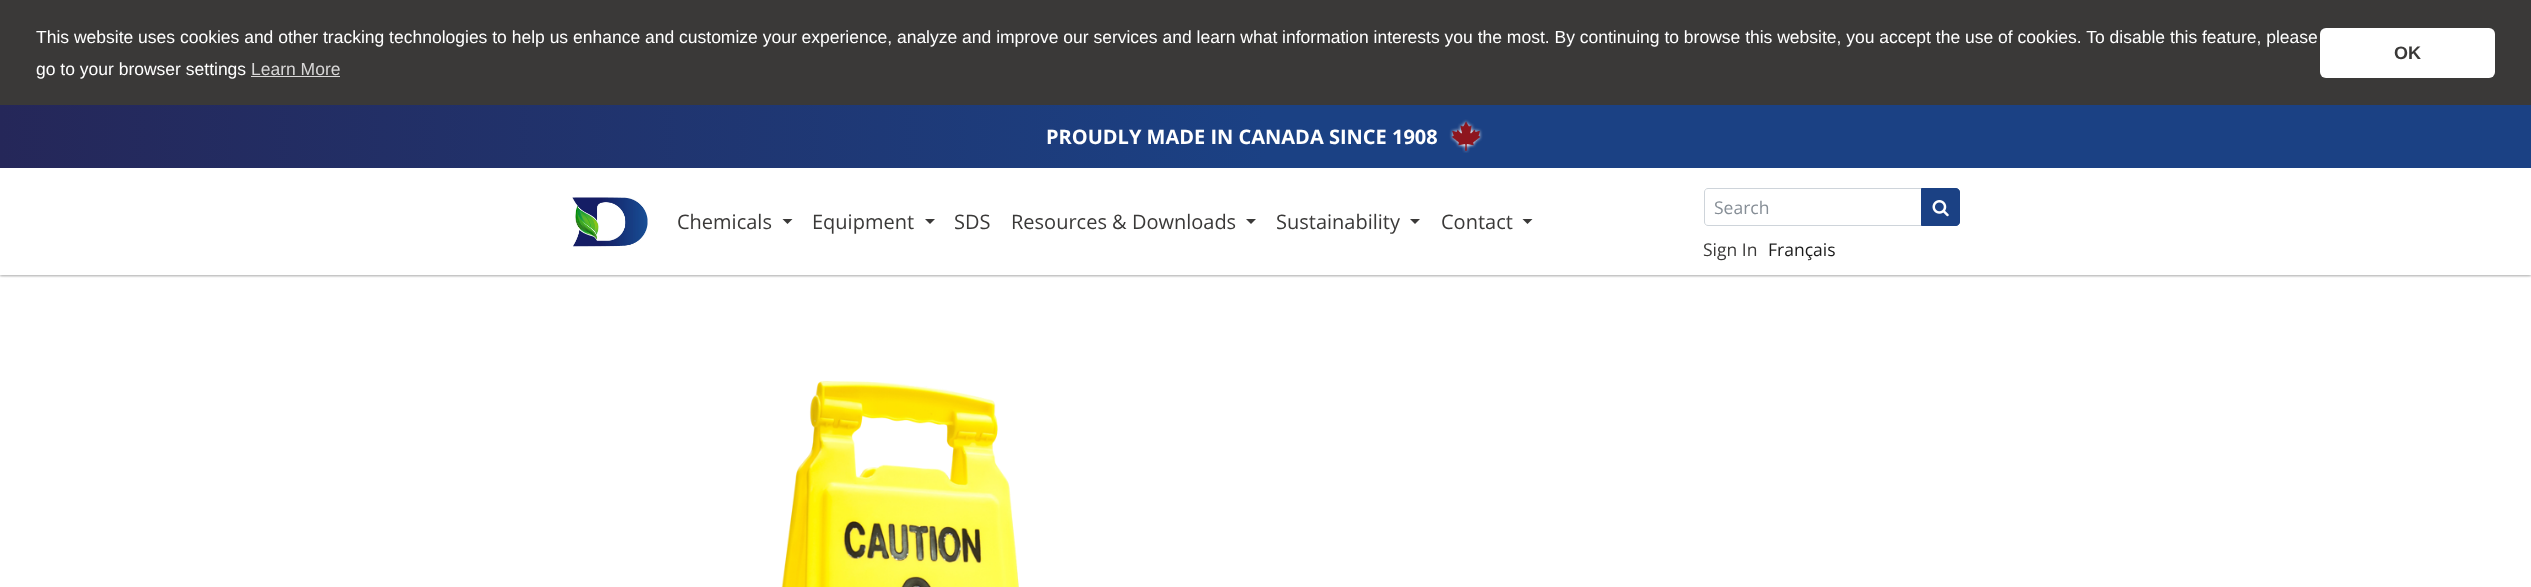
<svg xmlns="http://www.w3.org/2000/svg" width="2531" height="587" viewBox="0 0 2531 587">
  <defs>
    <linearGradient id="g1" gradientUnits="userSpaceOnUse" x1="0" y1="136" x2="2531" y2="136"><stop offset="0" stop-color="rgb(37,39,89)"/><stop offset="0.5" stop-color="rgb(27,65,132)"/><stop offset="1" stop-color="rgb(27,65,132)"/></linearGradient>
    <clipPath id="clip1"><rect x="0" y="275" width="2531" height="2"/></clipPath>
    <clipPath id="clip2"><rect x="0" y="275" width="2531" height="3"/></clipPath>
  </defs>
  <rect width="100%" height="100%" fill="rgb(255,255,255)"/>
  <rect x="0" y="0" width="2531" height="105" fill="rgb(58,57,56)"/>
  <g font-family="Liberation Sans" font-size="17.5" fill="rgb(255,255,255)">
    <text>
      <tspan x="36" y="43">This website uses cookies and other tracking technologies to help us enhance and customize your experience, analyze and improve our services and learn what information interests you the most. By continuing to browse this website, you accept the use of cookies. To disable this feature, please</tspan>
      <tspan x="36" y="75">go to your browser settings</tspan>
    </text>
  </g>
  <text x="251" y="75" font-family="Liberation Sans" font-size="17.5" fill="rgb(216,215,215)">Learn More</text>
  <rect x="251" y="76" width="89" height="1" fill="rgb(216,215,215)"/>
  <rect x="2320" y="28" width="175" height="50" rx="6" fill="rgb(255,255,255)"/>
  <text x="2394" y="59" font-family="Liberation Sans" font-size="18" font-weight="bold" fill="rgb(58,57,56)">OK</text>
  <rect x="0" y="105" width="2531" height="63" fill="url(#g1)"/>
  <text x="1046" y="144" font-family="Open Sans" font-size="20" font-weight="bold" fill="rgb(255,255,255)">PROUDLY MADE IN CANADA SINCE 1908</text>
  <image x="1449" y="119" width="34" height="34" href="pic1.png"/>
  <g clip-path="url(#clip1)">
    <rect x="0" y="169" width="2531" height="107" fill="rgba(0,0,0,0.24)" filter="blur(1px)"/>
  </g>
  <g clip-path="url(#clip2)">
    <rect x="0" y="169" width="2531" height="107" fill="rgba(0,0,0,0.12)" filter="blur(2px)"/>
  </g>
  <image x="572" y="197" width="76" height="50" href="pic2.png"/>
  <text x="677" y="229" font-family="Open Sans" font-size="20" fill="rgb(58,57,56)">Chemicals</text>
  <path d="M782.5 219H792.5L787.5 224Z" fill="rgb(58,57,56)"/>
  <text x="812" y="229" font-family="Open Sans" font-size="20" fill="rgb(58,57,56)">Equipment</text>
  <path d="M925 219H935L930 224Z" fill="rgb(58,57,56)"/>
  <g font-family="Open Sans" font-size="20" fill="rgb(58,57,56)">
    <text x="954" y="229">SDS</text>
    <text x="1011" y="229">Resources &amp; Downloads</text>
  </g>
  <path d="M1246 219H1256L1251 224Z" fill="rgb(58,57,56)"/>
  <text x="1276" y="229" font-family="Open Sans" font-size="20" fill="rgb(58,57,56)">Sustainability</text>
  <path d="M1410 219H1420L1415 224Z" fill="rgb(58,57,56)"/>
  <text x="1441" y="229" font-family="Open Sans" font-size="20" fill="rgb(58,57,56)">Contact</text>
  <path d="M1522.5 219H1532.5L1527.5 224Z" fill="rgb(58,57,56)"/>
  <path d="M1708 188.5H1922.5V225.5H1708C1706 225.5 1704.5 224 1704.5 222V192C1704.5 190 1706 188.5 1708 188.5Z" fill="none" stroke="rgb(206,212,218)"/>
  <text x="1714" y="214" font-family="Open Sans" font-size="17.5" fill="rgb(134,142,150)">Search</text>
  <path d="M1921.5 188.5H1956C1958 188.5 1959.5 190 1959.5 192V222C1959.5 224 1958 225.5 1956 225.5H1921.5Z" fill="rgb(27,65,132)" stroke="rgb(27,65,132)"/>
  <image x="1932" y="200" width="17" height="17" href="pic3.png"/>
  <text x="1703" y="256" font-family="Open Sans" font-size="17.5" fill="rgb(58,57,56)">Sign In</text>
  <text x="1768" y="256" font-family="Open Sans" font-size="17.5" fill="rgb(26,26,26)">Français</text>
  <image x="781" y="381" width="238" height="206" href="pic4.png"/>
</svg>
